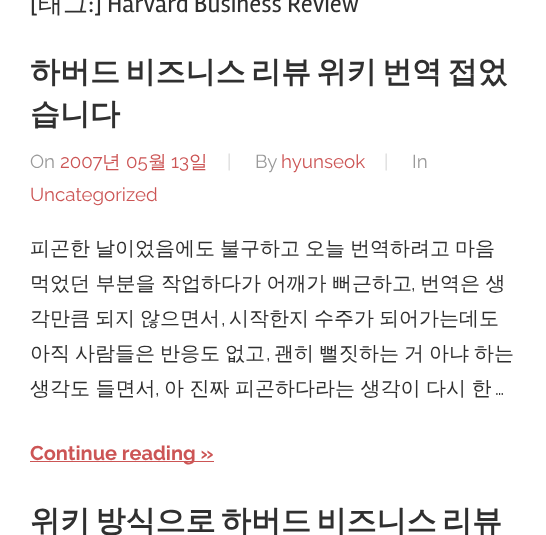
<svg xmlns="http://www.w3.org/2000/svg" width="546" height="535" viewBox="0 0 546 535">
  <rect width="100%" height="100%" fill="rgb(255,255,255)"/>
  <text x="30" y="12" font-family="Rambla" font-size="25" fill="rgb(48,48,48)">[</text>
  <text x="38" y="12" font-family="WenQuanYi Zen Hei" font-size="25" font-weight="500" fill="rgb(48,48,48)">태그</text>
  <text x="88" y="12" font-family="Rambla" font-size="25" fill="rgb(48,48,48)">:] Harvard Business Review</text>
  <g font-family="WenQuanYi Zen Hei" font-size="30" font-weight="bold" fill="rgb(48,48,48)">
    <text>
      <tspan x="30" y="82" word-spacing="-3.5">하버드 비즈니스 리뷰 위키 번역 접었</tspan>
      <tspan x="30" y="124">습니다</tspan>
    </text>
  </g>
  <text x="30" y="168" font-family="Raleway" font-size="18.75" fill="rgb(153,153,153)">On</text>
  <text x="60" y="168" font-family="Raleway" font-size="18.75" fill="rgb(204,85,85)">2007</text>
  <text x="102" y="168" font-family="WenQuanYi Zen Hei" font-size="18.75" font-weight="500" fill="rgb(204,85,85)">년</text>
  <text x="126" y="168" font-family="Raleway" font-size="18.75" fill="rgb(204,85,85)">05</text>
  <text x="148" y="168" font-family="WenQuanYi Zen Hei" font-size="18.75" font-weight="500" fill="rgb(204,85,85)">월</text>
  <text x="171" y="168" font-family="Raleway" font-size="18.75" fill="rgb(204,85,85)">13</text>
  <text x="189" y="168" font-family="WenQuanYi Zen Hei" font-size="18.75" font-weight="500" fill="rgb(204,85,85)">일</text>
  <text x="227" y="168" font-family="Raleway" font-size="18.75" fill="rgb(217,217,217)">|</text>
  <text x="255" y="168" font-family="Raleway" font-size="18.75" fill="rgb(153,153,153)">By</text>
  <text x="281" y="168" font-family="Raleway" font-size="18.75" fill="rgb(204,85,85)">hyunseok</text>
  <text x="384" y="168" font-family="Raleway" font-size="18.75" fill="rgb(217,217,217)">|</text>
  <text x="412" y="168" font-family="Raleway" font-size="18.75" fill="rgb(153,153,153)">In</text>
  <text x="30" y="201" font-family="Raleway" font-size="18.75" fill="rgb(204,85,85)">Uncategorized</text>
  <g font-family="WenQuanYi Zen Hei" font-size="20" font-weight="500" fill="rgb(48,48,48)">
    <text>
      <tspan x="30" y="255" word-spacing="-1">피곤한 날이었음에도 불구하고 오늘 번역하려고 마음</tspan>
      <tspan x="30" y="290" word-spacing="-0.5">먹었던 부분을 작업하다가 어깨가 뻐근하고</tspan>
    </text>
  </g>
  <text x="411" y="290" font-family="Raleway" font-size="20" fill="rgb(48,48,48)">,</text>
  <g font-family="WenQuanYi Zen Hei" font-size="20" font-weight="500" fill="rgb(48,48,48)">
    <text x="420" y="290" word-spacing="-0.5">번역은 생</text>
    <text x="30" y="325" word-spacing="-1">각만큼 되지 않으면서</text>
  </g>
  <text x="221" y="325" font-family="Raleway" font-size="20" fill="rgb(48,48,48)">,</text>
  <g font-family="WenQuanYi Zen Hei" font-size="20" font-weight="500" fill="rgb(48,48,48)">
    <text x="229" y="325" word-spacing="-1">시작한지 수주가 되어가는데도</text>
    <text x="30" y="360" word-spacing="-1">아직 사람들은 반응도 없고</text>
  </g>
  <text x="266" y="360" font-family="Raleway" font-size="20" fill="rgb(48,48,48)">,</text>
  <g font-family="WenQuanYi Zen Hei" font-size="20" font-weight="500" fill="rgb(48,48,48)">
    <text x="274" y="360" word-spacing="-1">괜히 뻘짓하는 거 아냐 하는</text>
    <text x="30" y="395" word-spacing="-0.5">생각도 들면서</text>
  </g>
  <text x="155" y="395" font-family="Raleway" font-size="20" fill="rgb(48,48,48)">,</text>
  <text x="164" y="395" word-spacing="-0.5" font-family="WenQuanYi Zen Hei" font-size="20" font-weight="500" fill="rgb(48,48,48)">아 진짜 피곤하다라는 생각이 다시 한</text>
  <text x="495" y="395" font-family="Raleway" font-size="20" fill="rgb(48,48,48)">…</text>
  <rect x="30" y="461" width="184" height="1" fill="rgb(204,85,85)"/>
  <text x="30" y="460" font-family="Raleway" font-size="20" font-weight="bold" fill="rgb(204,85,85)">Continue reading »</text>
  <text x="30" y="531" word-spacing="-3.5" font-family="WenQuanYi Zen Hei" font-size="30" font-weight="bold" fill="rgb(48,48,48)">위키 방식으로 하버드 비즈니스 리뷰</text>
</svg>
